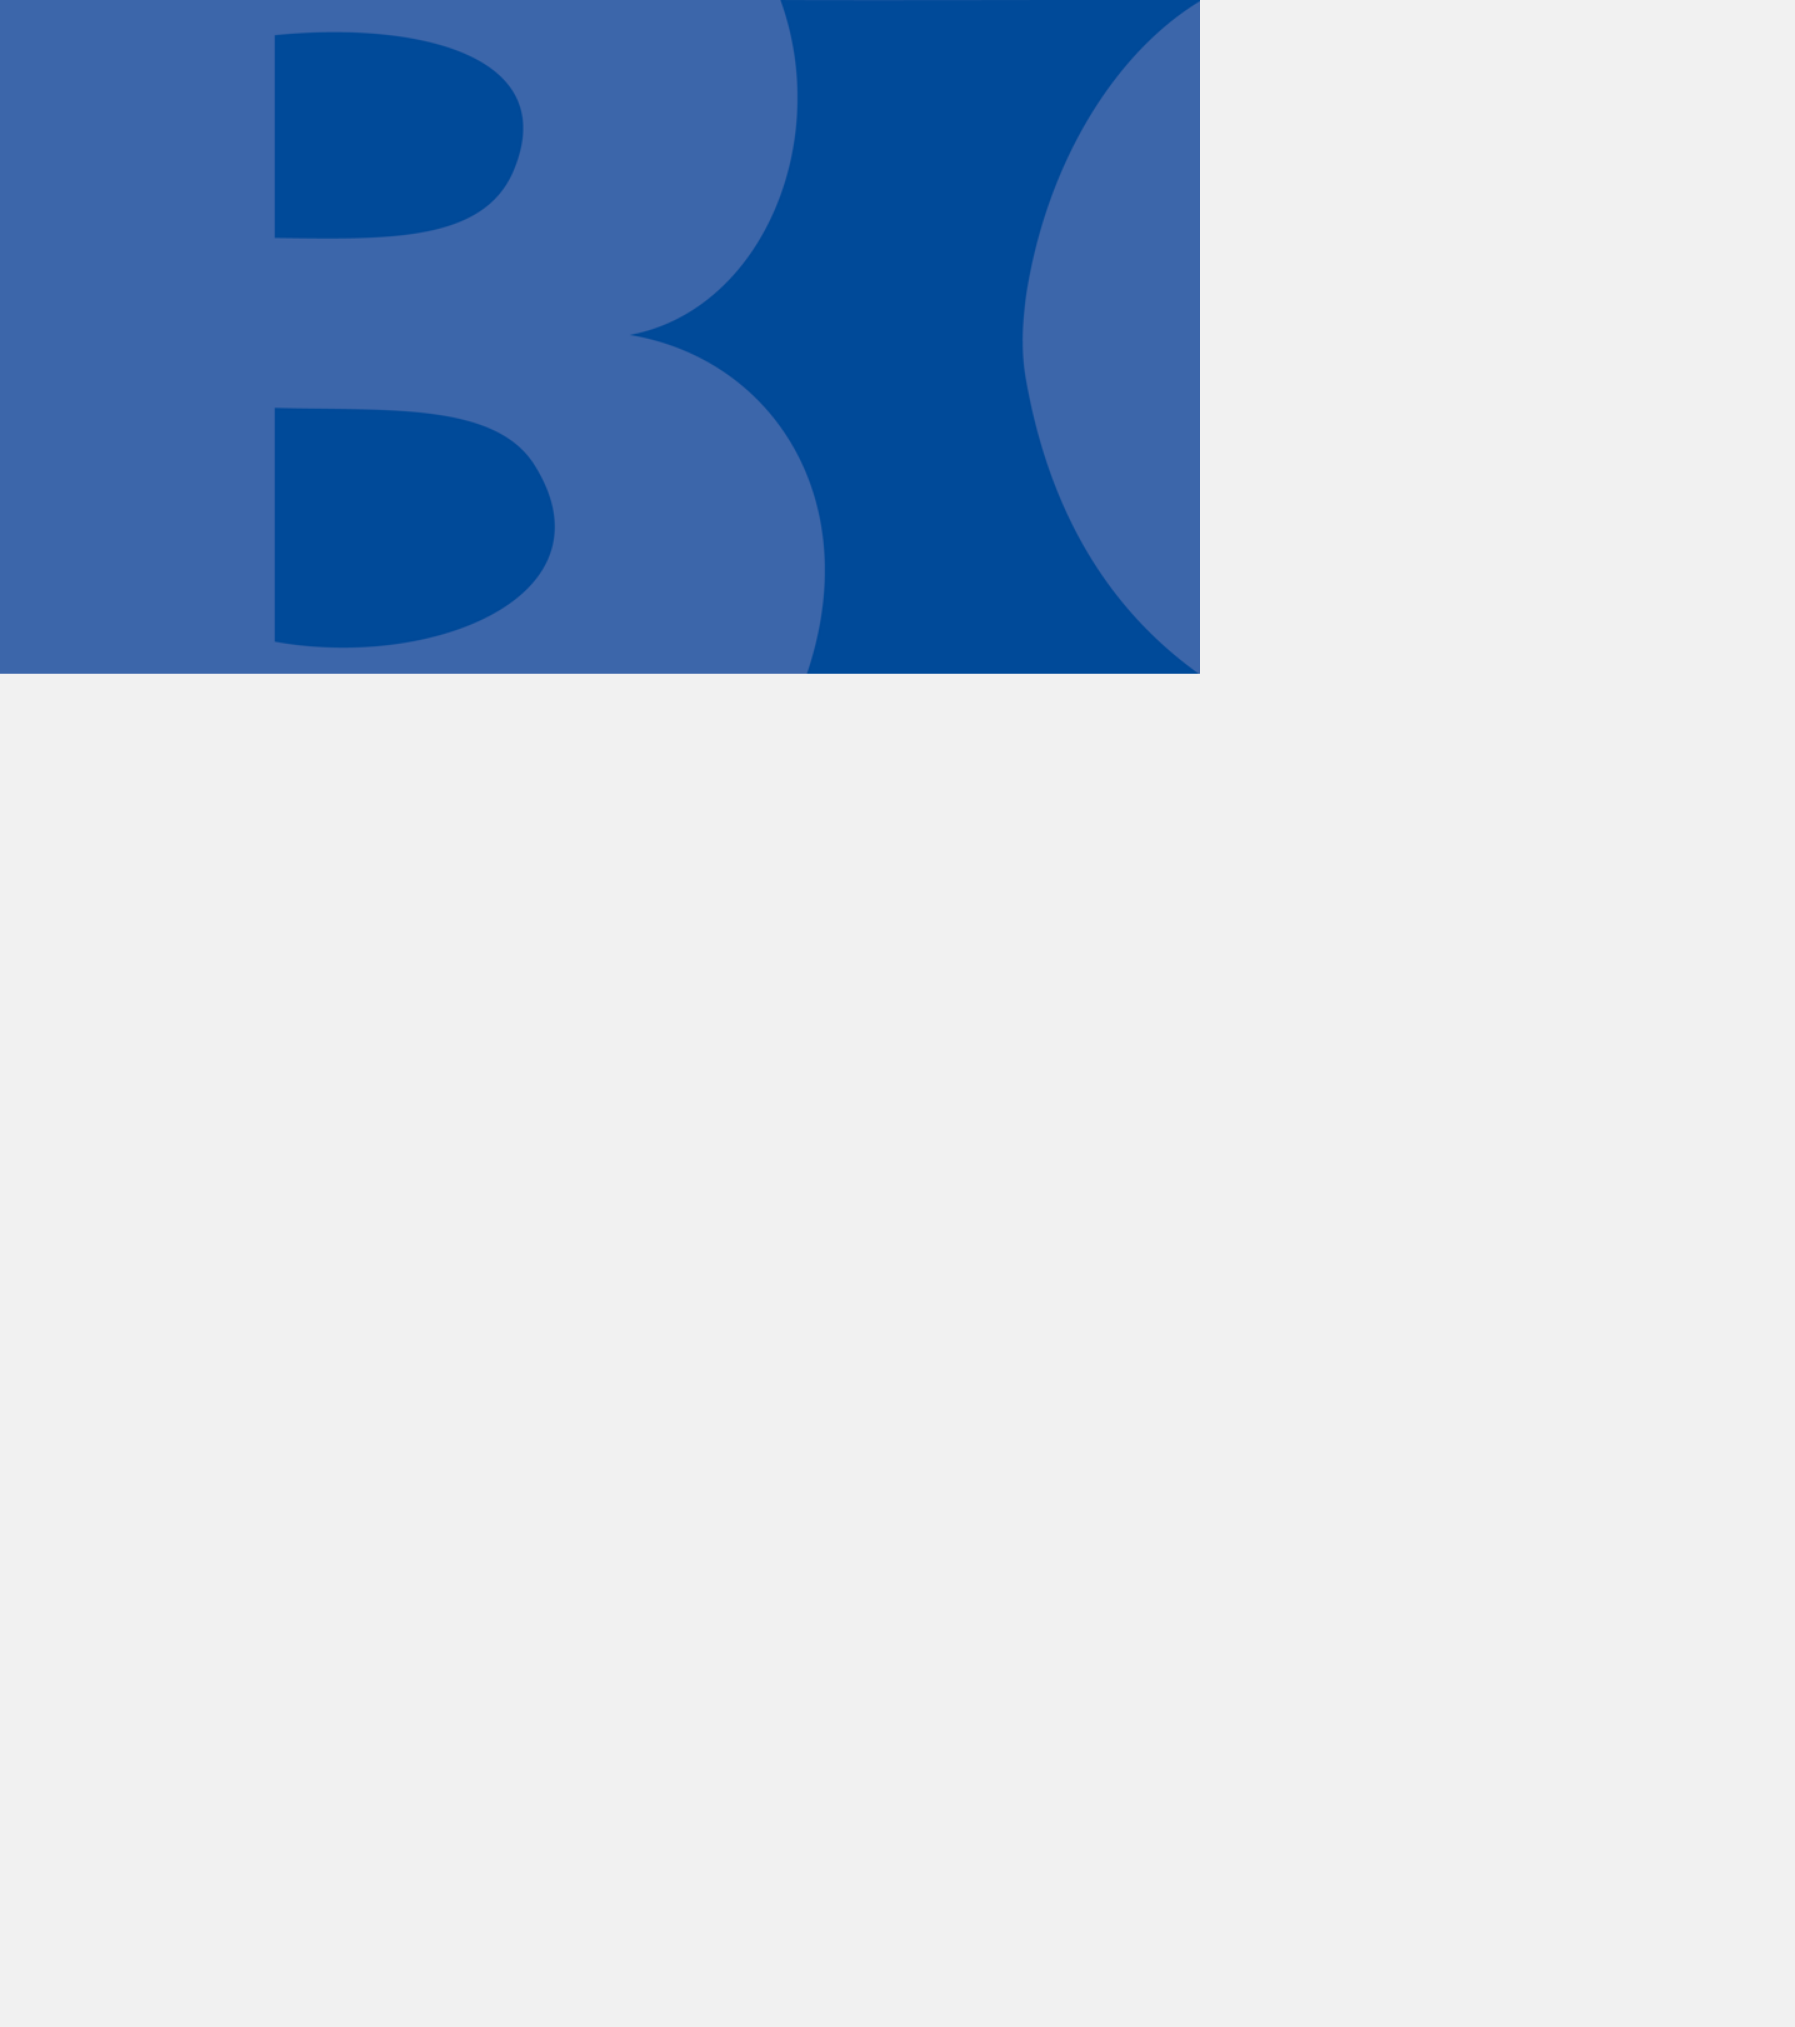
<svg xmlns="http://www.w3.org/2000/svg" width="1795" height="2027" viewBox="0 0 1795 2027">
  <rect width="100%" height="100%" fill="rgb(241,241,241)"/>
  <image x="0" y="0" width="1200" height="674" href="pic1.png"/>
</svg>
